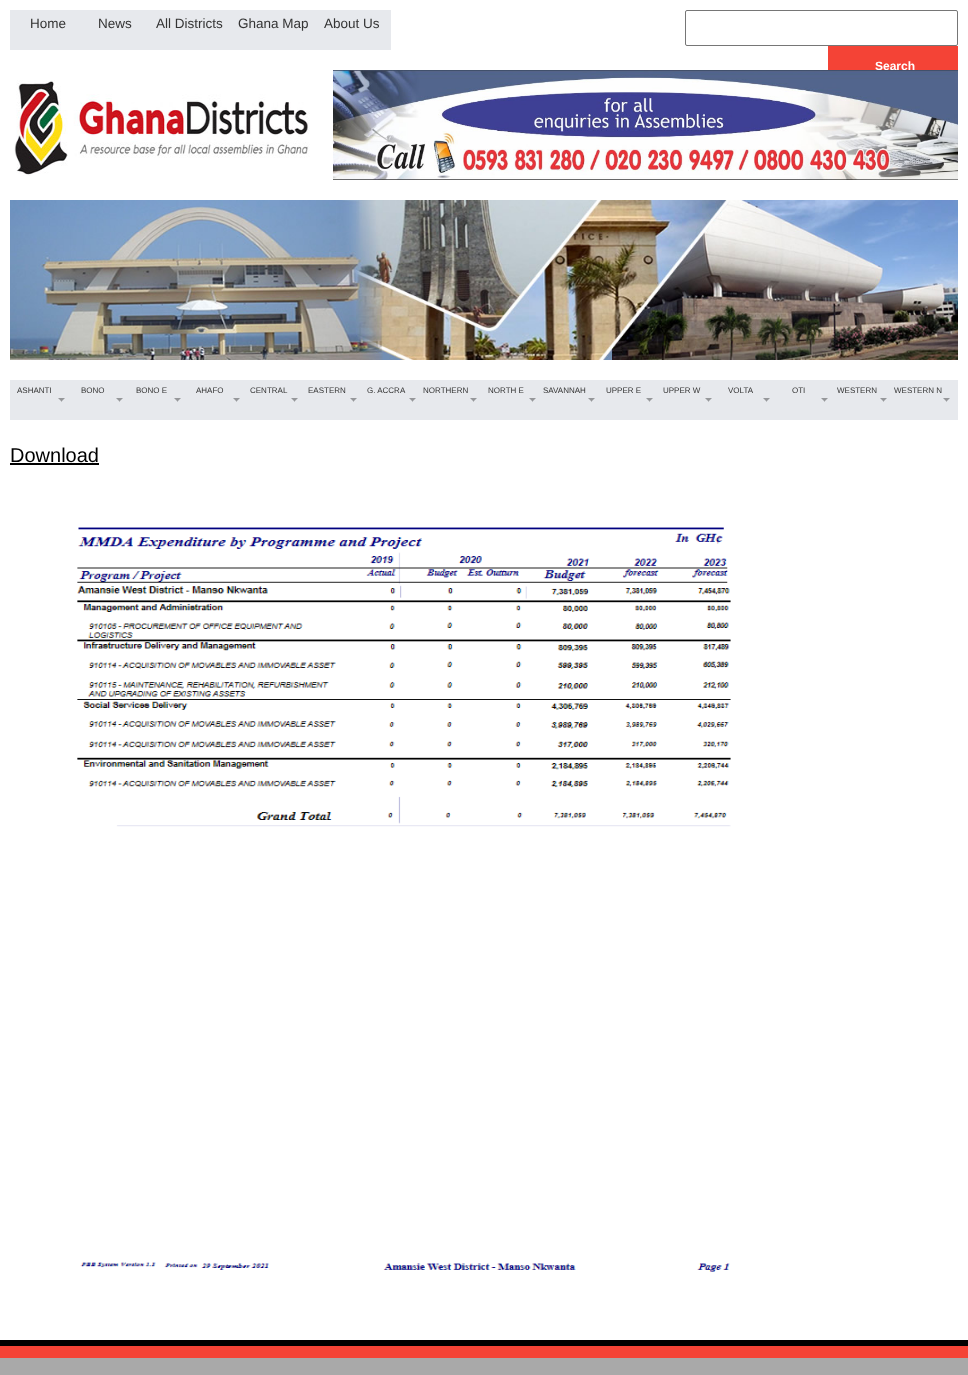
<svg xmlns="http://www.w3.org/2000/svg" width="968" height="1375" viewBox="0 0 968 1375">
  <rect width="100%" height="100%" fill="rgb(255,255,255)"/>
  <rect x="10" y="10" width="381" height="40" fill="rgb(231,233,237)"/>
  <g font-family="Liberation Sans" font-size="13.5" fill="rgb(52,52,52)">
    <text x="30" y="28">Home</text>
    <text x="98" y="28">News</text>
    <text x="156" y="28">All Districts</text>
    <text x="238" y="28">Ghana Map</text>
    <text x="324" y="28">About Us</text>
  </g>
  <rect x="685.5" y="10.5" width="272" height="35" rx="1.5" fill="none" stroke="rgb(118,118,118)"/>
  <rect x="828" y="46" width="130" height="24" fill="rgb(244,67,54)"/>
  <text x="875" y="70" font-family="Liberation Sans" font-size="12" font-weight="bold" fill="rgb(255,255,255)">Search</text>
  <image x="14" y="80" width="296" height="96" href="pic1.png"/>
  <image x="333" y="70" width="625" height="110" href="pic2.png"/>
  <image x="10" y="200" width="948" height="160" href="pic3.png"/>
  <rect x="10" y="380" width="948" height="40" fill="rgb(231,233,237)"/>
  <text x="17" y="393" font-family="Liberation Sans" font-size="8" fill="rgb(52,52,52)">ASHANTI</text>
  <image x="58" y="398" width="7" height="4" href="pic4.png"/>
  <text x="81" y="393" font-family="Liberation Sans" font-size="8" fill="rgb(52,52,52)">BONO</text>
  <image x="116" y="398" width="7" height="4" href="pic4.png"/>
  <text x="136" y="393" font-family="Liberation Sans" font-size="8" fill="rgb(52,52,52)">BONO E</text>
  <image x="174" y="398" width="7" height="4" href="pic4.png"/>
  <text x="196" y="393" font-family="Liberation Sans" font-size="8" fill="rgb(52,52,52)">AHAFO</text>
  <image x="233" y="398" width="7" height="4" href="pic4.png"/>
  <text x="250" y="393" font-family="Liberation Sans" font-size="8" fill="rgb(52,52,52)">CENTRAL</text>
  <image x="291" y="398" width="7" height="4" href="pic4.png"/>
  <text x="308" y="393" font-family="Liberation Sans" font-size="8" fill="rgb(52,52,52)">EASTERN</text>
  <image x="350" y="398" width="7" height="4" href="pic4.png"/>
  <text x="367" y="393" font-family="Liberation Sans" font-size="8" fill="rgb(52,52,52)">G. ACCRA</text>
  <image x="409" y="398" width="7" height="4" href="pic4.png"/>
  <text x="423" y="393" font-family="Liberation Sans" font-size="8" fill="rgb(52,52,52)">NORTHERN</text>
  <image x="470" y="398" width="7" height="4" href="pic4.png"/>
  <text x="488" y="393" font-family="Liberation Sans" font-size="8" fill="rgb(52,52,52)">NORTH E</text>
  <image x="529" y="398" width="7" height="4" href="pic4.png"/>
  <text x="543" y="393" font-family="Liberation Sans" font-size="8" fill="rgb(52,52,52)">SAVANNAH</text>
  <image x="588" y="398" width="7" height="4" href="pic4.png"/>
  <text x="606" y="393" font-family="Liberation Sans" font-size="8" fill="rgb(52,52,52)">UPPER E</text>
  <image x="646" y="398" width="7" height="4" href="pic4.png"/>
  <text x="663" y="393" font-family="Liberation Sans" font-size="8" fill="rgb(52,52,52)">UPPER W</text>
  <image x="705" y="398" width="7" height="4" href="pic4.png"/>
  <text x="728" y="393" font-family="Liberation Sans" font-size="8" fill="rgb(52,52,52)">VOLTA</text>
  <image x="763" y="398" width="7" height="4" href="pic4.png"/>
  <text x="792" y="393" font-family="Liberation Sans" font-size="8" fill="rgb(52,52,52)">OTI</text>
  <image x="821" y="398" width="7" height="4" href="pic4.png"/>
  <text x="837" y="393" font-family="Liberation Sans" font-size="8" fill="rgb(52,52,52)">WESTERN</text>
  <image x="880" y="398" width="7" height="4" href="pic4.png"/>
  <text x="894" y="393" font-family="Liberation Sans" font-size="8" fill="rgb(52,52,52)">WESTERN N</text>
  <image x="943" y="398" width="7" height="4" href="pic4.png"/>
  <text x="10" y="462" font-family="Liberation Sans" font-size="20" fill="rgb(0,0,0)">Download</text>
  <rect x="10" y="463" width="89" height="2" fill="rgb(0,0,0)"/>
  <image x="77" y="527" width="654" height="745" href="pic5.png"/>
  <rect x="0" y="1340" width="968" height="6" fill="rgb(0,0,0)"/>
  <rect x="0" y="1346" width="968" height="12" fill="rgb(244,67,54)"/>
  <rect x="0" y="1358" width="968" height="17" fill="rgb(169,169,169)"/>
</svg>
